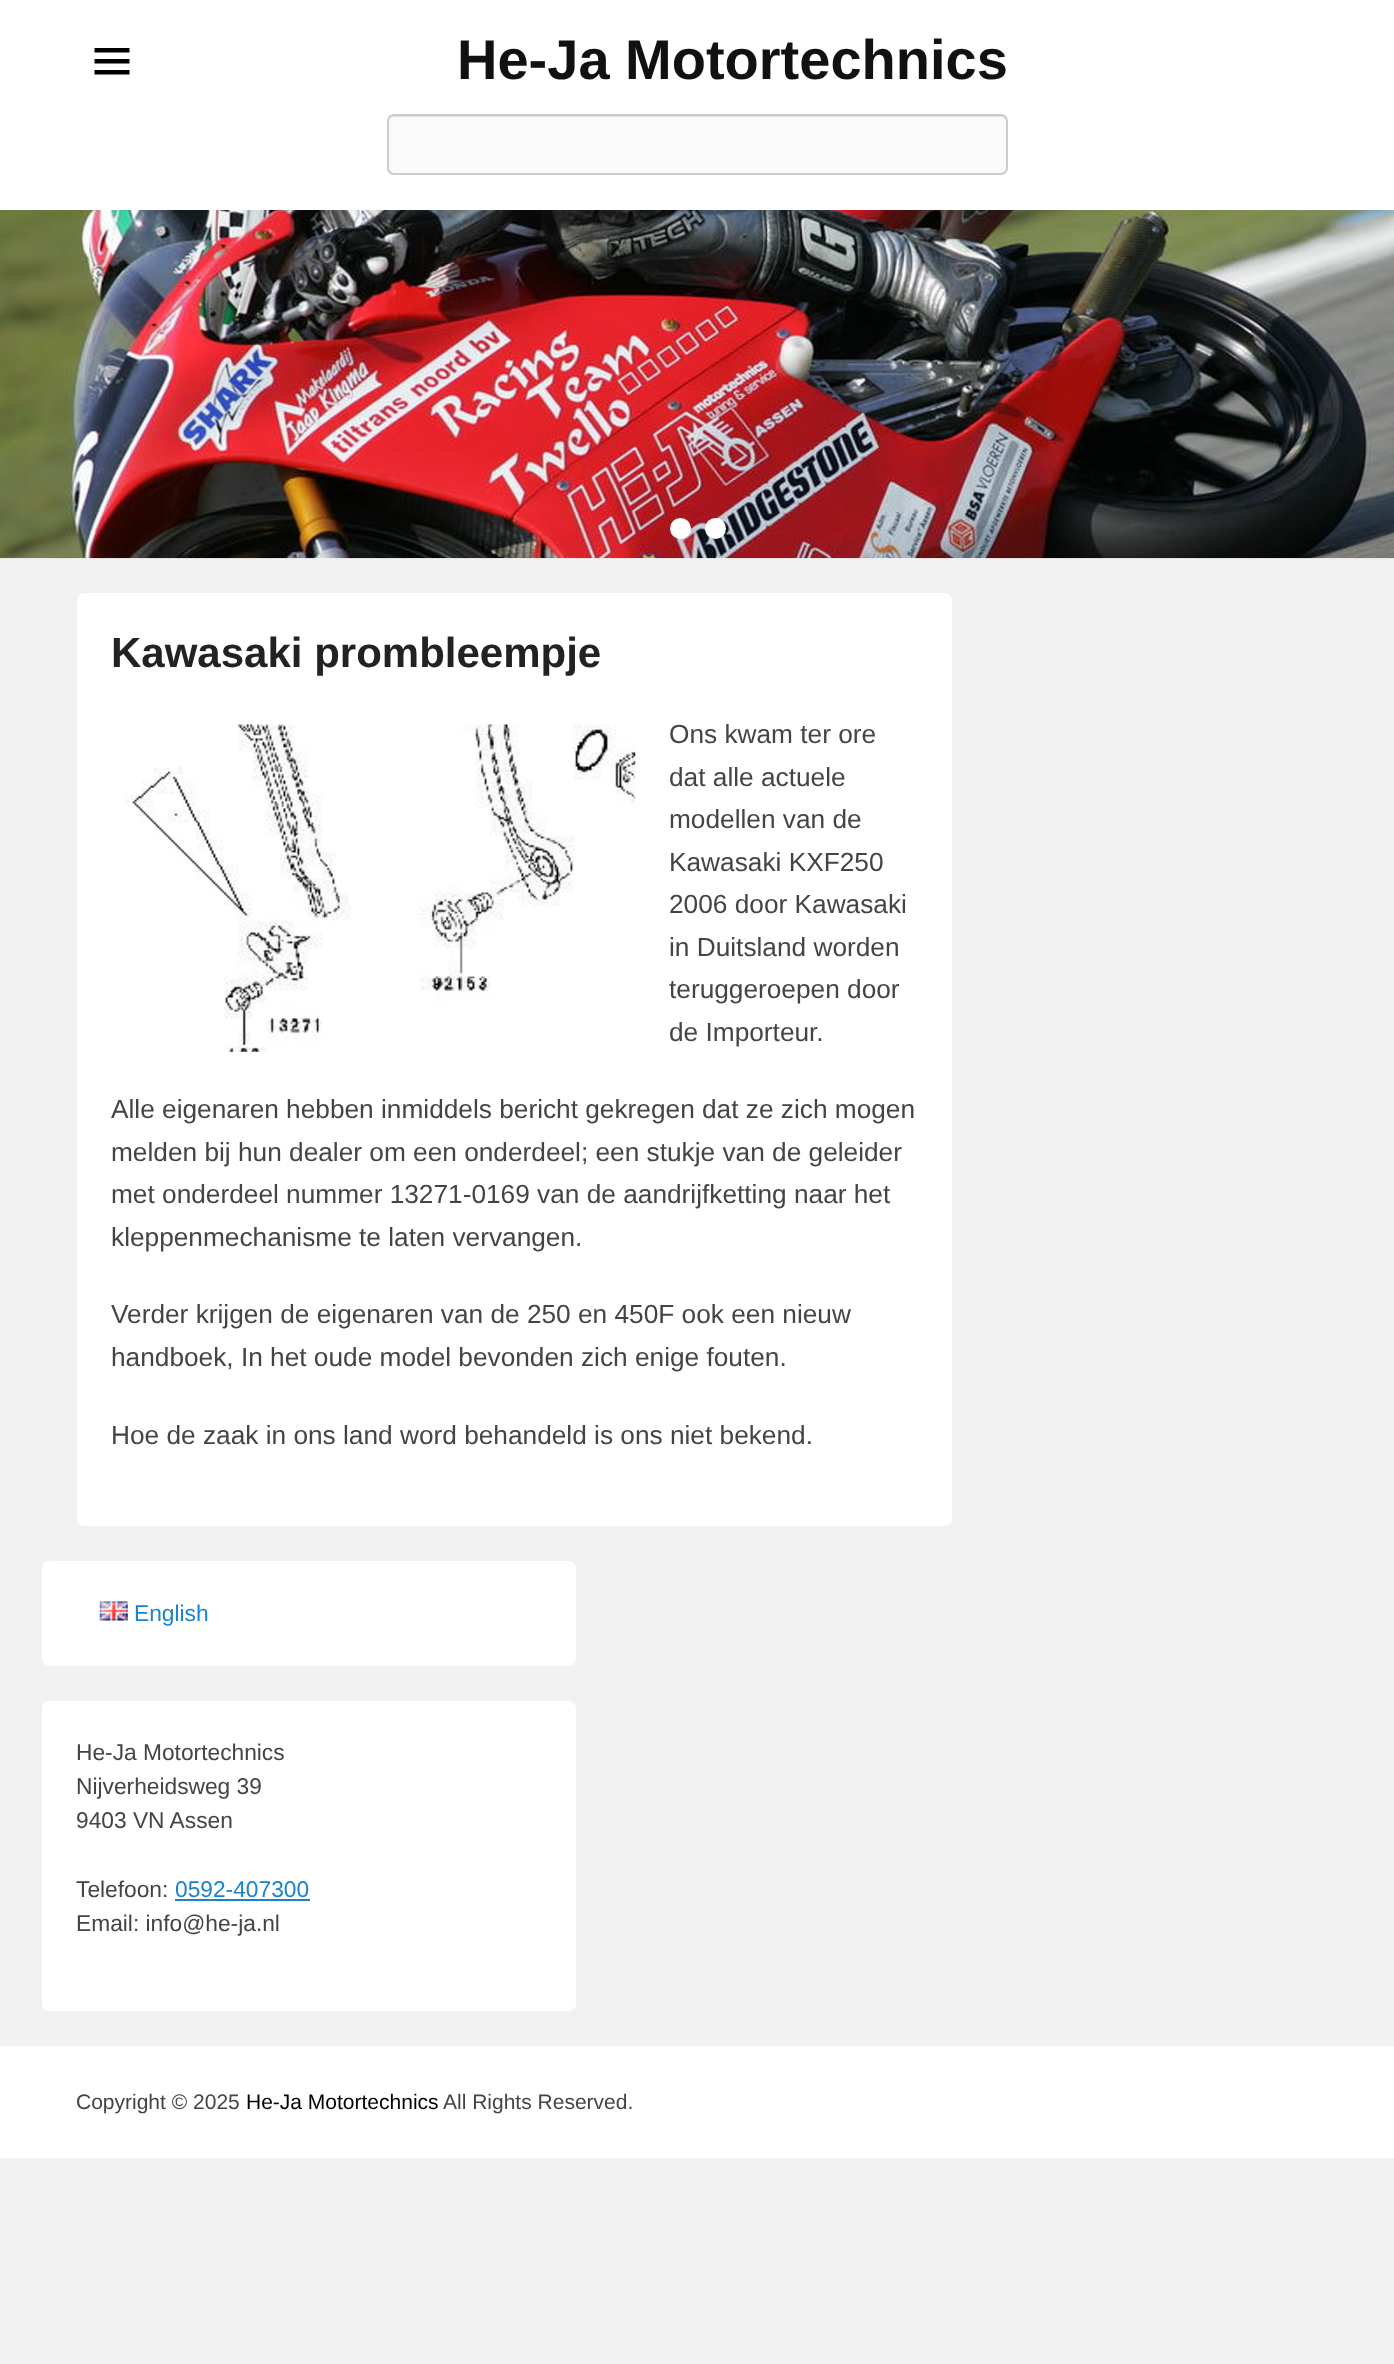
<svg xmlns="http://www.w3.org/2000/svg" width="1394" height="2364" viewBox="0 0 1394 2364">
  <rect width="100%" height="100%" fill="rgb(241,241,241)"/>
  <rect x="0" y="0" width="1394" height="210" fill="rgb(255,255,255)"/>
  <path d="M94.5 74.5V70H129.5V74.5ZM94.5 48H129.5V52.5H94.5ZM94.5 63.5V59H129.5V63.5Z" fill="rgb(0,0,0)"/>
  <text x="457" y="79" font-family="Liberation Sans" font-size="56" font-weight="bold" fill="rgb(17,17,17)">He-Ja Motortechnics</text>
  <rect x="387" y="114" width="621" height="61" rx="7" fill="rgb(250,250,250)"/>
  <path d="M394 117H1001C1004 117 1006 120 1006 122V121C1006 118 1004 116 1001 116H394C392 116 390 117 389 119C390 118 392 117 394 117Z" fill="rgb(225,225,225)"/>
  <rect x="388" y="115" width="619" height="59" rx="6" fill="none" stroke="rgb(204,204,204)" stroke-width="2"/>
  <image x="0" y="210" width="1394" height="349" href="pic1.png"/>
  <circle cx="680.5" cy="528.5" r="10.5" fill="rgb(255,255,255)"/>
  <circle cx="715.5" cy="528.5" r="10.5" fill="rgb(255,255,255)"/>
  <rect x="77" y="593" width="875" height="933" rx="7" fill="rgb(255,255,255)"/>
  <text x="111" y="667" font-family="Liberation Sans" font-size="42" font-weight="bold" fill="rgb(34,34,34)">Kawasaki prombleempje</text>
  <image x="126" y="724" width="510" height="328" href="pic2.png"/>
  <g font-family="Liberation Sans" font-size="26.25" fill="rgb(68,68,68)">
    <text>
      <tspan x="669" y="743">Ons kwam ter ore</tspan>
      <tspan x="669" y="786">dat alle actuele</tspan>
      <tspan x="669" y="828">modellen van de</tspan>
      <tspan x="669" y="871">Kawasaki KXF250</tspan>
      <tspan x="669" y="913">2006 door Kawasaki</tspan>
      <tspan x="669" y="956">in Duitsland worden</tspan>
      <tspan x="669" y="998">teruggeroepen door</tspan>
      <tspan x="669" y="1041">de Importeur.</tspan>
    </text>
    <text>
      <tspan x="111" y="1118">Alle eigenaren hebben inmiddels bericht gekregen dat ze zich mogen</tspan>
      <tspan x="111" y="1161">melden bij hun dealer om een onderdeel; een stukje van de geleider</tspan>
      <tspan x="111" y="1203">met onderdeel nummer 13271-0169 van de aandrijfketting naar het</tspan>
      <tspan x="111" y="1246">kleppenmechanisme te laten vervangen.</tspan>
    </text>
    <text>
      <tspan x="111" y="1323">Verder krijgen de eigenaren van de 250 en 450F ook een nieuw</tspan>
      <tspan x="111" y="1366">handboek, In het oude model bevonden zich enige fouten.</tspan>
    </text>
    <text x="111" y="1444">Hoe de zaak in ons land word behandeld is ons niet bekend.</text>
  </g>
  <rect x="42" y="1561" width="534" height="105" rx="7" fill="rgb(255,255,255)"/>
  <image x="99" y="1601" width="29" height="20" href="pic3.png"/>
  <text x="134" y="1621" font-family="Liberation Sans" font-size="22.75" fill="rgb(25,130,209)">English</text>
  <rect x="42" y="1701" width="534" height="310" rx="7" fill="rgb(255,255,255)"/>
  <g font-family="Liberation Sans" font-size="22.75" fill="rgb(68,68,68)">
    <text>
      <tspan x="76" y="1760">He-Ja Motortechnics</tspan>
      <tspan x="76" y="1794">Nijverheidsweg 39</tspan>
      <tspan x="76" y="1828">9403 VN Assen</tspan>
    </text>
    <text x="76" y="1897">Telefoon:</text>
  </g>
  <text x="175" y="1897" font-family="Liberation Sans" font-size="22.75" fill="rgb(25,130,209)">0592-407300</text>
  <rect x="175" y="1899" width="135" height="2" fill="rgb(25,130,209)"/>
  <text x="76" y="1931" font-family="Liberation Sans" font-size="22.75" fill="rgb(68,68,68)">Email: info@he-ja.nl</text>
  <rect x="0" y="2046" width="1394" height="112" fill="rgb(255,255,255)"/>
  <text x="76" y="2109" font-family="Liberation Sans" font-size="21" fill="rgb(68,68,68)">Copyright © 2025</text>
  <text x="246" y="2109" font-family="Liberation Sans" font-size="21" fill="rgb(0,0,0)">He-Ja Motortechnics</text>
  <text x="443" y="2109" font-family="Liberation Sans" font-size="21" fill="rgb(68,68,68)">All Rights Reserved.</text>
</svg>
